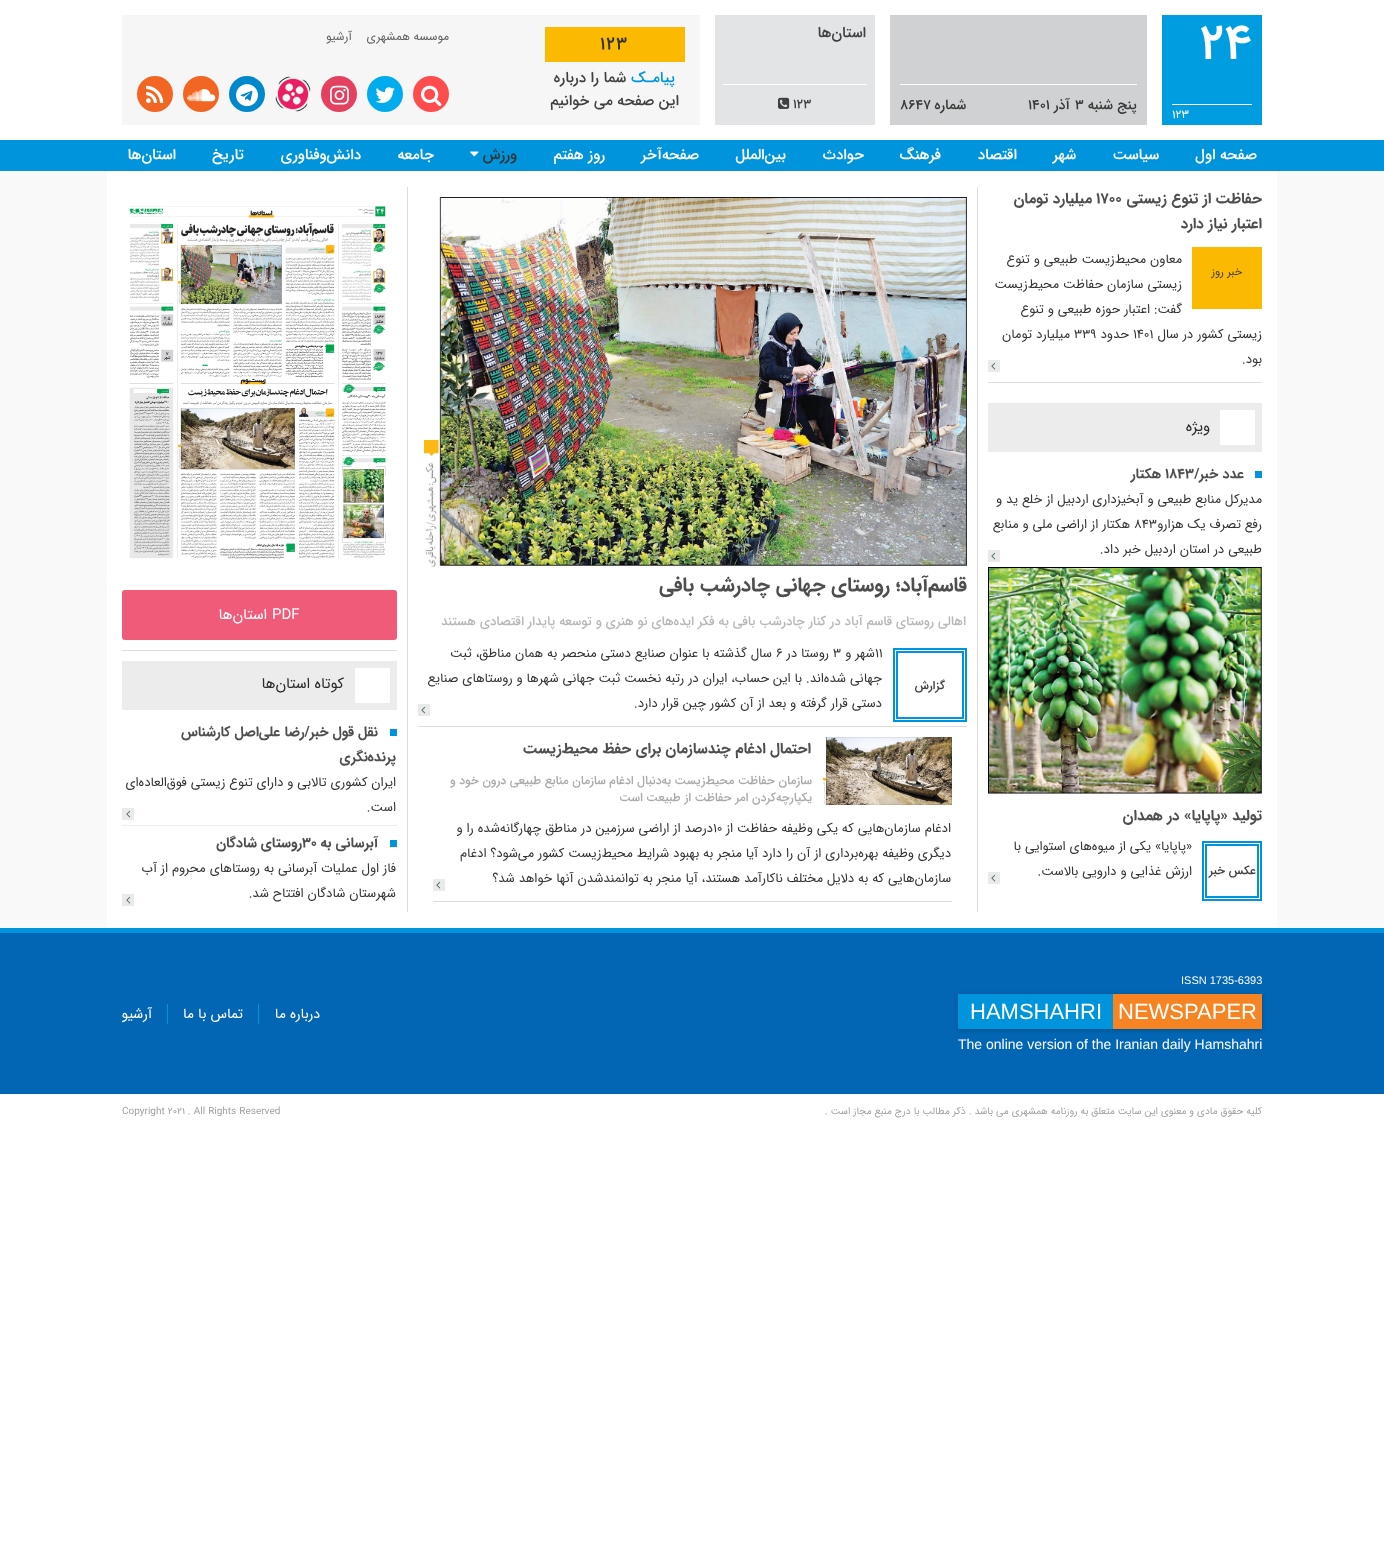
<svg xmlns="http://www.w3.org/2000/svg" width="1384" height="1543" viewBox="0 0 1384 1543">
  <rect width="100%" height="100%" fill="rgb(255,255,255)"/>
  <rect x="1162" y="15" width="100" height="110" fill="rgb(0,158,224)"/>
  <text x="1200" y="58" font-family="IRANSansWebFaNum" font-size="50" font-weight="500" fill="rgb(255,255,255)">24</text>
  <rect x="1172" y="104" width="80" height="1" fill="rgb(255,255,255)"/>
  <text x="1172" y="118" font-family="IRANSansWebFaNum" font-size="12" fill="rgb(255,255,255)">123</text>
  <rect x="890" y="15" width="257" height="110" fill="rgb(207,209,210)"/>
  <rect x="900" y="84" width="237" height="1" fill="rgb(255,255,255)"/>
  <text x="1137" y="109" font-family="IRANSansWebFaNum" font-size="14" font-weight="500" direction="rtl" fill="rgb(58,58,58)">پنج شنبه</text>
  <text x="1075" y="109" font-family="IRANSansWebFaNum" font-size="14" font-weight="500" fill="rgb(58,58,58)">3</text>
  <text x="1070" y="109" font-family="IRANSansWebFaNum" font-size="14" font-weight="500" direction="rtl" fill="rgb(58,58,58)">آذر</text>
  <text x="1028" y="109" font-family="IRANSansWebFaNum" font-size="14" font-weight="500" fill="rgb(58,58,58)">1401</text>
  <text x="966" y="109" font-family="IRANSansWebFaNum" font-size="14" font-weight="500" direction="rtl" fill="rgb(58,58,58)">شماره</text>
  <text x="900" y="109" font-family="IRANSansWebFaNum" font-size="14" font-weight="500" fill="rgb(58,58,58)">8647</text>
  <rect x="715" y="15" width="160" height="110" fill="rgb(227,228,229)"/>
  <text x="866" y="37" font-family="IRANSansWebFaNum" font-size="15" font-weight="500" direction="rtl" fill="rgb(64,64,64)">استان‌ها</text>
  <rect x="723" y="84" width="144" height="1" fill="rgb(255,255,255)"/>
  <text x="793" y="108" font-family="IRANSansWebFaNum" font-size="13" font-weight="500" fill="rgb(64,64,64)">123</text>
  <image x="778" y="97" width="12" height="12" href="pic1.png"/>
  <rect x="122" y="15" width="578" height="110" fill="rgb(246,246,246)"/>
  <rect x="545" y="27" width="140" height="35" fill="rgb(251,186,0)"/>
  <text x="600" y="49" font-family="IRANSansWebFaNum" font-size="18" font-weight="500" letter-spacing="1" fill="rgb(51,51,51)">123</text>
  <text x="675" y="82" font-family="IRANSansWebFaNum" font-size="15" font-weight="500" direction="rtl" fill="rgb(0,148,220)">پیامـک</text>
  <g font-family="IRANSansWebFaNum" font-size="15" font-weight="500" direction="rtl" fill="rgb(64,64,64)">
    <text x="626" y="82">شما را درباره</text>
    <text x="679" y="105">این صفحه می خوانیم</text>
  </g>
  <g font-family="IRANSansWebFaNum" font-size="12" direction="rtl" fill="rgb(98,98,98)">
    <text x="449" y="40">موسسه همشهری</text>
    <text x="352" y="40">آرشیو</text>
  </g>
  <circle cx="431" cy="94" r="18" fill="rgb(255,76,76)"/>
  <image x="421" y="85" width="21" height="22" href="pic2.png"/>
  <circle cx="385" cy="94" r="18" fill="rgb(0,172,237)"/>
  <image x="375" y="87" width="20" height="16" href="pic3.png"/>
  <circle cx="339" cy="94" r="18" fill="rgb(228,64,95)"/>
  <image x="330" y="85" width="19" height="20" href="pic4.png"/>
  <image x="275" y="76" width="36" height="36" href="pic5.png"/>
  <circle cx="247" cy="94" r="18" fill="rgb(0,136,204)"/>
  <image x="236" y="84" width="22" height="23" href="pic6.png"/>
  <circle cx="201" cy="94" r="18" fill="rgb(242,101,34)"/>
  <image x="187" y="89" width="29" height="13" href="pic7.png"/>
  <circle cx="155" cy="94" r="18" fill="rgb(242,101,34)"/>
  <image x="146" y="85" width="18" height="18" href="pic8.png"/>
  <rect x="0" y="140" width="1384" height="31" fill="rgb(0,148,220)"/>
  <g font-family="IRANSansWebFaNum" font-size="15" font-weight="500" direction="rtl" fill="rgb(255,255,255)">
    <text x="1257" y="159">صفحه اول</text>
    <text x="1159" y="159">سیاست</text>
    <text x="1076" y="159">شهر</text>
    <text x="1017" y="159">اقتصاد</text>
    <text x="941" y="159">فرهنگ</text>
    <text x="864" y="159">حوادث</text>
    <text x="786" y="159">بین‌الملل</text>
    <text x="699" y="159">صفحه‌آخر</text>
    <text x="605" y="159">روز هفتم</text>
  </g>
  <text x="517" y="159" font-family="IRANSansWebFaNum" font-size="15" font-weight="500" direction="rtl" fill="rgb(51,51,51)">ورزش</text>
  <image x="470" y="151" width="9" height="6" href="pic9.png"/>
  <g font-family="IRANSansWebFaNum" font-size="15" font-weight="500" direction="rtl" fill="rgb(255,255,255)">
    <text x="434" y="159">جامعه</text>
    <text x="361" y="159">دانش‌وفناوری</text>
    <text x="244" y="159">تاریخ</text>
    <text x="176" y="159">استان‌ها</text>
  </g>
  <rect x="0" y="171" width="1384" height="757" fill="rgb(249,249,249)"/>
  <rect x="107" y="171" width="1170" height="757" fill="rgb(255,255,255)"/>
  <rect x="977" y="187" width="1" height="725" fill="rgb(221,221,221)"/>
  <rect x="988" y="382" width="274" height="1" fill="rgb(221,221,221)"/>
  <text x="1262" y="203" font-family="IRANSansWebFaNum" font-size="15" font-weight="bold" direction="rtl" fill="rgb(78,78,78)">حفاظت از تنوع زیستی</text>
  <text x="1096" y="203" font-family="IRANSansWebFaNum" font-size="15" font-weight="bold" fill="rgb(78,78,78)">1700</text>
  <g font-family="IRANSansWebFaNum" font-size="15" font-weight="bold" direction="rtl" fill="rgb(78,78,78)">
    <text x="1092" y="203">میلیارد تومان</text>
    <text x="1262" y="228">اعتبار نیاز دارد</text>
  </g>
  <g font-family="IRANSansWebFaNum" font-size="13" direction="rtl" fill="rgb(51,51,51)">
    <text>
      <tspan x="1182" y="263">معاون محیط‌زیست طبیعی و تنوع</tspan>
      <tspan x="1182" y="288">زیستی سازمان حفاظت محیط‌زیست</tspan>
      <tspan x="1182" y="313">گفت: اعتبار حوزه طبیعی و تنوع</tspan>
    </text>
    <text x="1262" y="338">زیستی کشور در سال</text>
  </g>
  <text x="1133" y="338" font-family="IRANSansWebFaNum" font-size="13" fill="rgb(51,51,51)">۱۴۰۱</text>
  <text x="1129" y="338" font-family="IRANSansWebFaNum" font-size="13" direction="rtl" fill="rgb(51,51,51)">حدود</text>
  <text x="1074" y="338" font-family="IRANSansWebFaNum" font-size="13" fill="rgb(51,51,51)">۳۳۹</text>
  <g font-family="IRANSansWebFaNum" font-size="13" direction="rtl" fill="rgb(51,51,51)">
    <text x="1070" y="338">میلیارد تومان</text>
    <text x="1262" y="363">بود.</text>
  </g>
  <rect x="1192" y="247" width="70" height="62" fill="rgb(251,186,0)"/>
  <text x="1242" y="275" font-family="IRANSansWebFaNum" font-size="11" direction="rtl" fill="rgb(64,64,64)">خبر روز</text>
  <rect x="988" y="360" width="12" height="12" fill="rgb(234,234,234)"/>
  <image x="991" y="362" width="5" height="8" href="pic10.png"/>
  <rect x="988" y="403" width="274" height="49" fill="rgb(236,236,237)"/>
  <rect x="1220" y="410" width="35" height="35" fill="rgb(255,255,255)"/>
  <text x="1210" y="431" font-family="IRANSansWebFaNum" font-size="15" direction="rtl" fill="rgb(41,41,41)">ویژه</text>
  <rect x="1255" y="471" width="7" height="7" fill="rgb(0,148,220)"/>
  <text x="1165" y="478" font-family="IRANSansWebFaNum" font-size="14" font-weight="bold" fill="rgb(78,78,78)">1843</text>
  <g font-family="IRANSansWebFaNum" font-size="14" font-weight="bold" direction="rtl" fill="rgb(78,78,78)">
    <text x="1244" y="478">عدد خبر/</text>
    <text x="1161" y="478">هکتار</text>
  </g>
  <g font-family="IRANSansWebFaNum" font-size="13" direction="rtl" fill="rgb(51,51,51)">
    <text>
      <tspan x="1262" y="503">مدیرکل منابع طبیعی و آبخیزداری اردبیل از خلع ید و</tspan>
      <tspan x="1262" y="528">رفع تصرف یک هزارو</tspan>
    </text>
  </g>
  <text x="1134" y="528" font-family="IRANSansWebFaNum" font-size="13" fill="rgb(51,51,51)">۸۴۳</text>
  <g font-family="IRANSansWebFaNum" font-size="13" direction="rtl" fill="rgb(51,51,51)">
    <text x="1130" y="528">هکتار از اراضی ملی و منابع</text>
    <text x="1262" y="553">طبیعی در استان اردبیل خبر داد.</text>
  </g>
  <rect x="988" y="550" width="12" height="12" fill="rgb(234,234,234)"/>
  <image x="991" y="552" width="5" height="8" href="pic10.png"/>
  <image x="988" y="567" width="274" height="227" href="pic11.png"/>
  <text x="1262" y="820" font-family="IRANSansWebFaNum" font-size="15" font-weight="bold" direction="rtl" fill="rgb(78,78,78)">تولید «پاپایا» در همدان</text>
  <rect x="1203" y="842" width="58" height="58" fill="none" stroke="rgb(0,148,220)" stroke-width="2"/>
  <rect x="1206" y="845" width="52" height="52" fill="none" stroke="rgb(0,148,220)" stroke-width="2"/>
  <text x="1256" y="874" font-family="IRANSansWebFaNum" font-size="12" font-weight="500" direction="rtl" fill="rgb(64,64,64)">عکس خبر</text>
  <g font-family="IRANSansWebFaNum" font-size="13" direction="rtl" fill="rgb(51,51,51)">
    <text>
      <tspan x="1192" y="850">«پاپایا» یکی از میوه‌های استوایی با</tspan>
      <tspan x="1192" y="875">ارزش غذایی و دارویی بالاست.</tspan>
    </text>
  </g>
  <rect x="988" y="872" width="12" height="12" fill="rgb(234,234,234)"/>
  <image x="991" y="874" width="5" height="8" href="pic10.png"/>
  <rect x="418" y="726" width="549" height="1" fill="rgb(221,221,221)"/>
  <image x="424" y="197" width="543" height="371" href="pic12.png"/>
  <text x="967" y="591" font-family="IRANSansWebFaNum" font-size="20" font-weight="bold" direction="rtl" fill="rgb(78,78,78)">قاسم‌آباد؛ روستای جهانی چادرشب ‌بافی</text>
  <text x="966" y="625" font-family="IRANSansWebFaNum" font-size="13" font-weight="500" direction="rtl" fill="rgb(184,184,184)">اهالی روستای قاسم آباد در کنار چادرشب بافی به فکر ایده‌های نو هنری و توسعه پایدار اقتصادی هستند</text>
  <rect x="894" y="649" width="72" height="72" fill="none" stroke="rgb(0,148,220)" stroke-width="2"/>
  <rect x="897" y="652" width="66" height="66" fill="none" stroke="rgb(0,148,220)" stroke-width="2"/>
  <text x="945" y="689" font-family="IRANSansWebFaNum" font-size="12" font-weight="500" direction="rtl" fill="rgb(64,64,64)">گزارش</text>
  <text x="875" y="657" font-family="IRANSansWebFaNum" font-size="13" fill="rgb(51,51,51)">11</text>
  <text x="875" y="657" font-family="IRANSansWebFaNum" font-size="13" direction="rtl" fill="rgb(51,51,51)">شهر و</text>
  <text x="833" y="657" font-family="IRANSansWebFaNum" font-size="13" fill="rgb(51,51,51)">۳</text>
  <text x="829" y="657" font-family="IRANSansWebFaNum" font-size="13" direction="rtl" fill="rgb(51,51,51)">روستا در</text>
  <text x="776" y="657" font-family="IRANSansWebFaNum" font-size="13" fill="rgb(51,51,51)">۶</text>
  <g font-family="IRANSansWebFaNum" font-size="13" direction="rtl" fill="rgb(51,51,51)">
    <text x="772" y="657">سال گذشته با عنوان صنایع‌ دستی منحصر به همان مناطق، ثبت</text>
    <text>
      <tspan x="882" y="682">جهانی شده‌اند. با این حساب، ایران در رتبه نخست ثبت جهانی شهرها و روستاهای صنایع</tspan>
      <tspan x="882" y="707">‌دستی قرار گرفته و بعد از آن کشور چین قرار دارد.</tspan>
    </text>
  </g>
  <rect x="418" y="704" width="12" height="12" fill="rgb(234,234,234)"/>
  <image x="421" y="706" width="5" height="8" href="pic10.png"/>
  <rect x="433" y="901" width="519" height="1" fill="rgb(221,221,221)"/>
  <image x="822" y="737" width="130" height="68" href="pic13.png"/>
  <text x="811" y="753" font-family="IRANSansWebFaNum" font-size="15" font-weight="bold" direction="rtl" fill="rgb(78,78,78)">احتمال ادغام چندسازمان برای حفظ محیط‌زیست</text>
  <g font-family="IRANSansWebFaNum" font-size="12" font-weight="500" direction="rtl" fill="rgb(170,170,170)">
    <text>
      <tspan x="812" y="784">سازمان حفاظت محیط‌زیست به‌دنبال ادغام سازمان منابع طبیعی درون خود و</tspan>
      <tspan x="812" y="801">یکپارچه‌کردن امر حفاظت از طبیعت است</tspan>
    </text>
  </g>
  <text x="951" y="832" font-family="IRANSansWebFaNum" font-size="13" direction="rtl" fill="rgb(51,51,51)">ادغام سازمان‌هایی که یکی وظیفه حفاظت از</text>
  <text x="713" y="832" font-family="IRANSansWebFaNum" font-size="13" fill="rgb(51,51,51)">10</text>
  <g font-family="IRANSansWebFaNum" font-size="13" direction="rtl" fill="rgb(51,51,51)">
    <text x="713" y="832">درصد از اراضی سرزمین در مناطق چهارگانه‌شده را و</text>
    <text>
      <tspan x="951" y="857">دیگری وظیفه بهره‌برداری از آن را دارد آیا منجر به بهبود شرایط محیط‌زیست کشور می‌شود؟ ادغام</tspan>
      <tspan x="951" y="882">سازمان‌هایی که به دلایل مختلف ناکارآمد هستند، آیا منجر به توانمندشدن آنها خواهد شد؟</tspan>
    </text>
  </g>
  <rect x="433" y="879" width="12" height="12" fill="rgb(234,234,234)"/>
  <image x="436" y="881" width="5" height="8" href="pic10.png"/>
  <rect x="407" y="187" width="1" height="725" fill="rgb(221,221,221)"/>
  <image x="129" y="206" width="257" height="353" href="pic14.png"/>
  <rect x="122" y="590" width="275" height="50" rx="3" fill="rgb(240,91,121)"/>
  <text x="272" y="619" font-family="IRANSansWebFaNum" font-size="15" fill="rgb(255,255,255)">PDF</text>
  <text x="267" y="619" font-family="IRANSansWebFaNum" font-size="15" direction="rtl" fill="rgb(255,255,255)">استان‌ها</text>
  <rect x="122" y="650" width="275" height="1" fill="rgb(221,221,221)"/>
  <rect x="122" y="661" width="275" height="49" fill="rgb(236,236,237)"/>
  <rect x="355" y="668" width="35" height="35" fill="rgb(255,255,255)"/>
  <text x="344" y="688" font-family="IRANSansWebFaNum" font-size="15" direction="rtl" fill="rgb(41,41,41)">کوتاه استان‌ها</text>
  <rect x="122" y="825" width="275" height="1" fill="rgb(238,238,238)"/>
  <rect x="390" y="729" width="7" height="7" fill="rgb(0,148,220)"/>
  <g font-family="IRANSansWebFaNum" font-size="14" font-weight="bold" direction="rtl" fill="rgb(78,78,78)">
    <text x="378" y="736">نقل قول خبر/رضا علی‌اصل کارشناس</text>
    <text x="396" y="761">پرنده‌نگری</text>
  </g>
  <g font-family="IRANSansWebFaNum" font-size="13" direction="rtl" fill="rgb(51,51,51)">
    <text>
      <tspan x="396" y="786">ایران کشوری تالابی و دارای تنوع زیستی فوق‌العاده‌ای</tspan>
      <tspan x="396" y="811">است.</tspan>
    </text>
  </g>
  <rect x="122" y="808" width="12" height="12" fill="rgb(234,234,234)"/>
  <image x="126" y="810" width="5" height="8" href="pic10.png"/>
  <rect x="390" y="840" width="7" height="7" fill="rgb(0,148,220)"/>
  <g font-family="IRANSansWebFaNum" font-size="14" font-weight="bold" direction="rtl" fill="rgb(78,78,78)">
    <text x="378" y="847">آبرسانی به</text>
    <text x="302" y="847">روستای شادگان</text>
  </g>
  <text x="302" y="847" font-family="IRANSansWebFaNum" font-size="14" font-weight="bold" fill="rgb(78,78,78)">30</text>
  <g font-family="IRANSansWebFaNum" font-size="13" direction="rtl" fill="rgb(51,51,51)">
    <text>
      <tspan x="396" y="872">فاز اول عملیات آبرسانی به روستاهای محروم از آب</tspan>
      <tspan x="396" y="897">شهرستان شادگان افتتاح شد.</tspan>
    </text>
  </g>
  <rect x="122" y="894" width="12" height="12" fill="rgb(234,234,234)"/>
  <image x="126" y="896" width="5" height="8" href="pic10.png"/>
  <rect x="0" y="933" width="1384" height="161" fill="rgb(2,102,180)"/>
  <rect x="0" y="928" width="1384" height="5" fill="rgb(0,148,220)"/>
  <text x="1181" y="984" font-family="Liberation Sans" font-size="11" fill="rgb(255,255,255)">ISSN 1735-6393</text>
  <rect x="958" y="995" width="304" height="35" fill="rgba(0,0,0,0.25)" filter="blur(2px)"/>
  <rect x="958" y="994" width="155" height="35" fill="rgb(0,148,220)"/>
  <rect x="1113" y="994" width="149" height="35" fill="rgb(247,132,34)"/>
  <g font-family="Liberation Sans" font-size="22" fill="rgb(255,255,255)">
    <text x="1118" y="1019">NEWSPAPER</text>
    <text x="970" y="1019">HAMSHAHRI</text>
  </g>
  <text x="958" y="1049" font-family="Liberation Sans" font-size="14" fill="rgb(255,255,255)">The online version of the Iranian daily Hamshahri</text>
  <rect x="258" y="1004" width="1" height="20" fill="rgb(0,148,220)"/>
  <text x="320" y="1018" font-family="IRANSansWebFaNum" font-size="14" direction="rtl" fill="rgb(255,255,255)">درباره ما</text>
  <rect x="167" y="1004" width="1" height="20" fill="rgb(0,148,220)"/>
  <g font-family="IRANSansWebFaNum" font-size="14" direction="rtl" fill="rgb(255,255,255)">
    <text x="243" y="1018">تماس با ما</text>
    <text x="152" y="1018">آرشیو</text>
  </g>
  <text x="1262" y="1114" font-family="IRANSansWebFaNum" font-size="10" direction="rtl" fill="rgb(161,161,161)">کلیه حقوق مادی و معنوی این سایت متعلق به روزنامه همشهری می باشد . ذکر مطالب با درج منبع مجاز است .</text>
  <text x="122" y="1114" font-family="IRANSansWebFaNum" font-size="10" fill="rgb(161,161,161)">Copyright 2021 . All Rights Reserved</text>
</svg>
